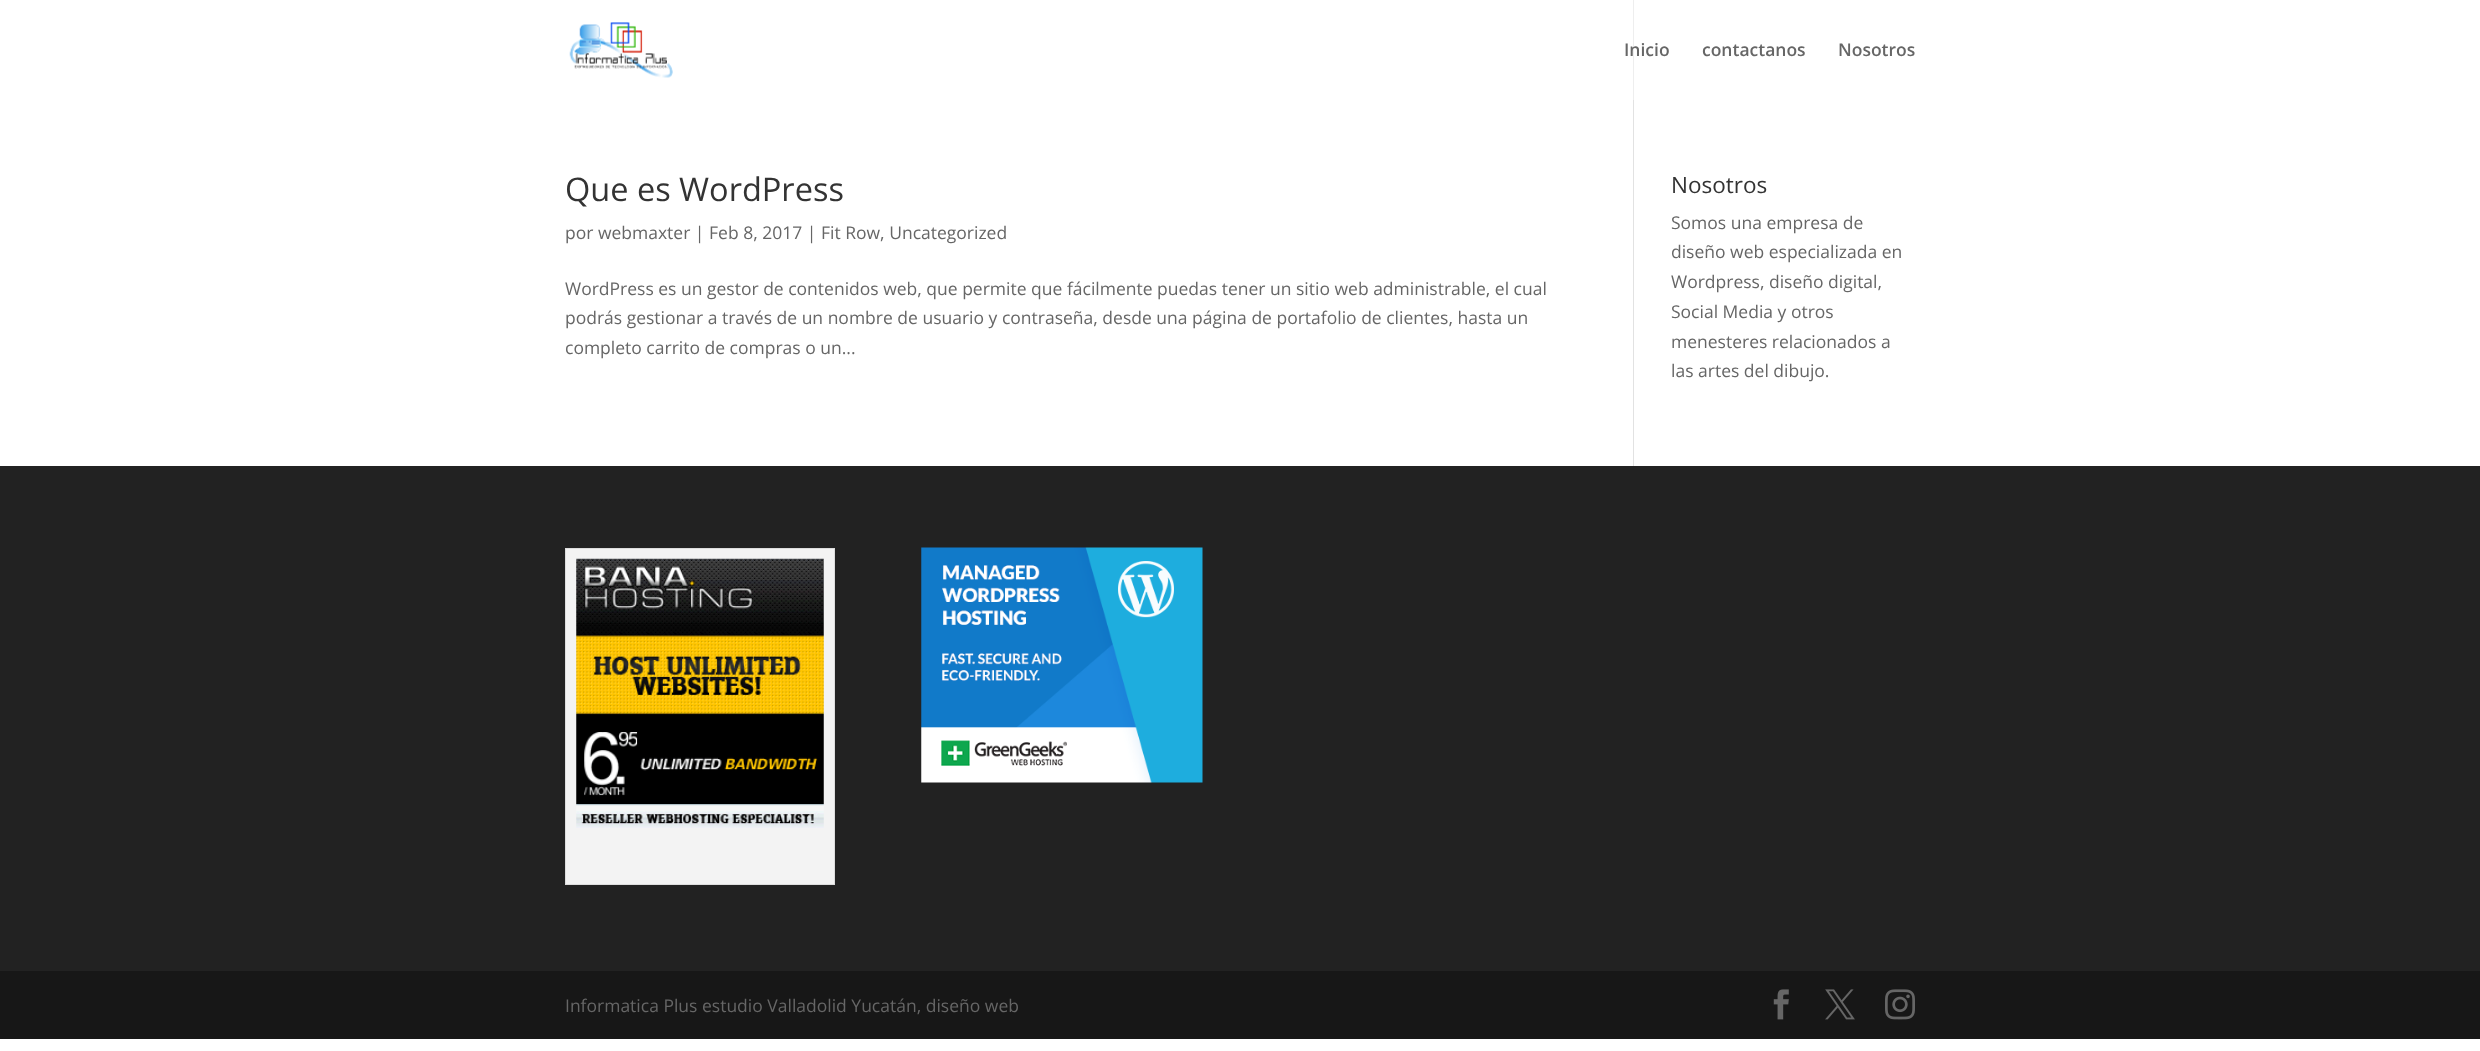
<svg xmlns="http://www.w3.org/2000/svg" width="2480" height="1051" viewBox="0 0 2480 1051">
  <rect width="100%" height="100%" fill="rgb(255,255,255)"/>
  <image x="569" y="22" width="104" height="56" href="pic1.png"/>
  <rect x="1633" y="0" width="1" height="100" fill="rgb(238,238,238)"/>
  <g font-family="Open Sans" font-size="17.5" font-weight="600" fill="rgb(102,102,102)">
    <text x="1624" y="56">Inicio</text>
    <text x="1702" y="56">contactanos</text>
    <text x="1838" y="56">Nosotros</text>
  </g>
  <rect x="1633" y="100" width="1" height="366" fill="rgb(226,226,226)"/>
  <text x="565" y="201" font-family="Open Sans" font-size="32.5" fill="rgb(51,51,51)">Que es WordPress</text>
  <g font-family="Open Sans" font-size="17.5" fill="rgb(102,102,102)">
    <text x="565" y="239">por webmaxter | Feb 8, 2017 | Fit Row, Uncategorized</text>
    <text>
      <tspan x="565" y="295">WordPress es un gestor de contenidos web, que permite que fácilmente puedas tener un sitio web administrable, el cual</tspan>
      <tspan x="565" y="324">podrás gestionar a través de un nombre de usuario y contraseña, desde una página de portafolio de clientes, hasta un</tspan>
      <tspan x="565" y="354">completo carrito de compras o un...</tspan>
    </text>
  </g>
  <text x="1671" y="193" font-family="Open Sans" font-size="22.5" fill="rgb(51,51,51)">Nosotros</text>
  <g font-family="Open Sans" font-size="17.5" fill="rgb(102,102,102)">
    <text>
      <tspan x="1671" y="229">Somos una empresa de</tspan>
      <tspan x="1671" y="258">diseño web especializada en</tspan>
      <tspan x="1671" y="288">Wordpress, diseño digital,</tspan>
      <tspan x="1671" y="318">Social Media y otros</tspan>
      <tspan x="1671" y="348">menesteres relacionados a</tspan>
      <tspan x="1671" y="377">las artes del dibujo.</tspan>
    </text>
  </g>
  <rect x="0" y="466" width="2480" height="505" fill="rgb(34,34,34)"/>
  <rect x="565.5" y="548.5" width="269" height="336" fill="rgb(243,243,243)" stroke="rgb(221,221,221)"/>
  <image x="576" y="558" width="248" height="270" href="pic2.png"/>
  <image x="921" y="547" width="282" height="236" href="pic3.png"/>
  <rect x="0" y="971" width="2480" height="68" fill="rgb(23,23,23)"/>
  <text x="565" y="1012" font-family="Open Sans" font-size="17.5" fill="rgb(102,102,102)">Informatica Plus estudio Valladolid Yucatán, diseño web</text>
  <image x="1773" y="989" width="16" height="31" href="pic4.png"/>
  <image x="1825" y="989" width="30" height="31" href="pic5.png"/>
  <image x="1885" y="989" width="30" height="31" href="pic6.png"/>
</svg>
